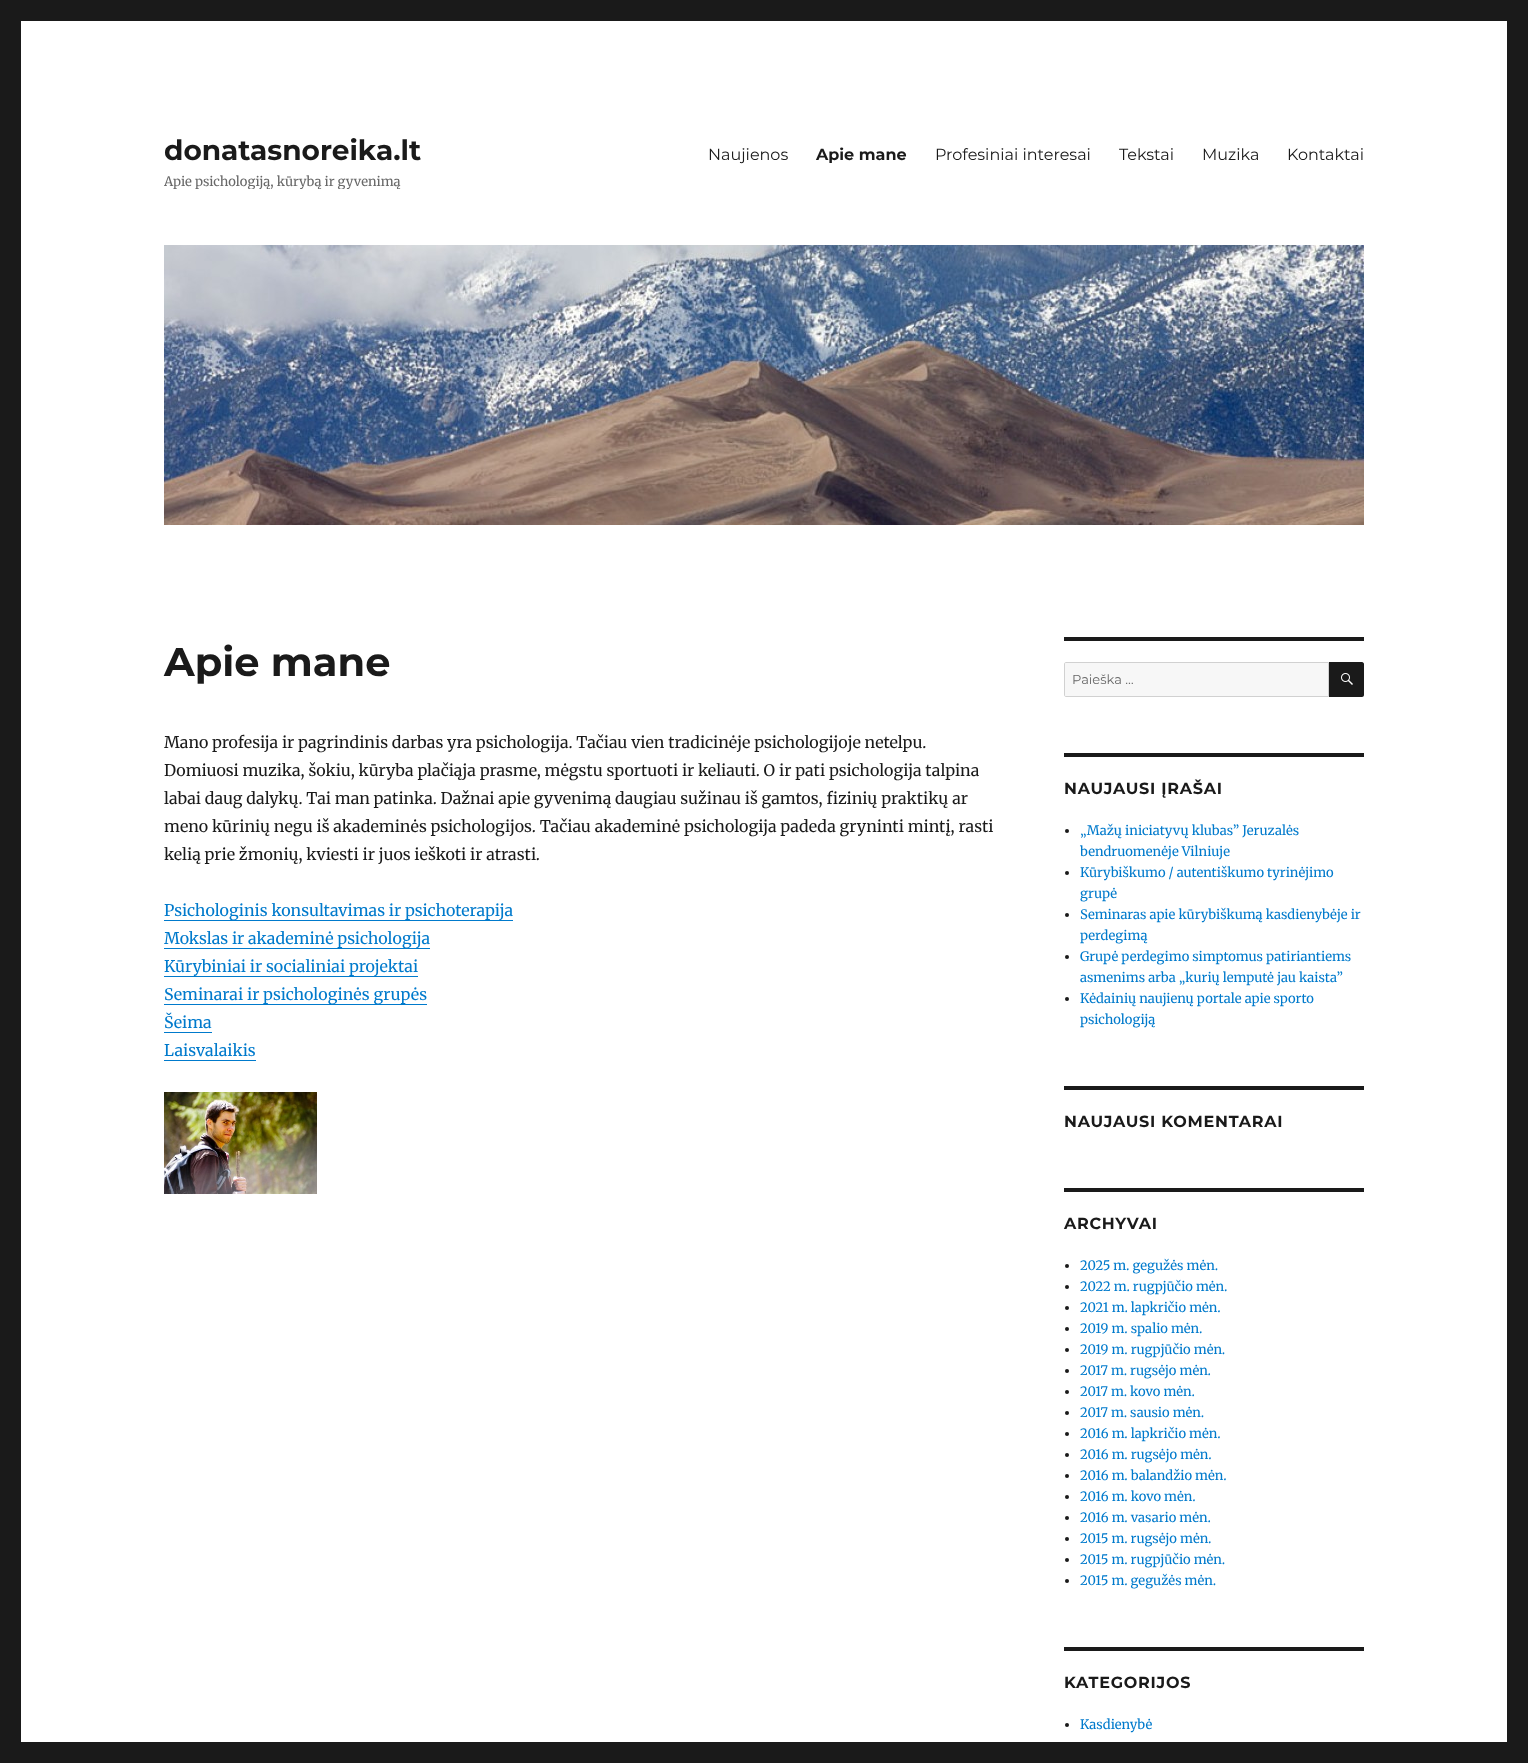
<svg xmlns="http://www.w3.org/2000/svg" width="1528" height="1763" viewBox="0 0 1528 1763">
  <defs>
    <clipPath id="clip1"><rect x="164" y="133" width="257" height="56"/></clipPath>
  </defs>
  <rect width="100%" height="100%" fill="rgb(26,26,26)"/>
  <rect x="21" y="21" width="1486" height="1721" fill="rgb(255,255,255)"/>
  <text x="164" y="160" font-family="Montserrat" font-size="28" font-weight="bold" fill="rgb(26,26,26)">donatasnoreika.lt</text>
  <g clip-path="url(#clip1)">
    <text x="164" y="186" font-family="Merriweather" font-size="13" fill="rgb(104,104,104)">Apie psichologiją, kūrybą ir gyvenimą</text>
  </g>
  <text x="708" y="160" font-family="Montserrat" font-size="16" fill="rgb(26,26,26)">Naujienos</text>
  <text x="816" y="160" font-family="Montserrat" font-size="16" font-weight="bold" fill="rgb(26,26,26)">Apie mane</text>
  <g font-family="Montserrat" font-size="16" fill="rgb(26,26,26)">
    <text x="935" y="160">Profesiniai interesai</text>
    <text x="1119" y="160">Tekstai</text>
    <text x="1202" y="160">Muzika</text>
    <text x="1287" y="160">Kontaktai</text>
  </g>
  <image x="164" y="245" width="1200" height="280" href="pic1.png"/>
  <text x="164" y="676" font-family="Montserrat" font-size="40" font-weight="bold" fill="rgb(26,26,26)">Apie mane</text>
  <g font-family="Merriweather" font-size="16" fill="rgb(26,26,26)">
    <text>
      <tspan x="164" y="748">Mano profesija ir pagrindinis darbas yra psichologija. Tačiau vien tradicinėje psichologijoje netelpu.</tspan>
      <tspan x="164" y="776">Domiuosi muzika, šokiu, kūryba plačiąja prasme, mėgstu sportuoti ir keliauti. O ir pati psichologija talpina</tspan>
      <tspan x="164" y="804">labai daug dalykų. Tai man patinka. Dažnai apie gyvenimą daugiau sužinau iš gamtos, fizinių praktikų ar</tspan>
      <tspan x="164" y="832">meno kūrinių negu iš akademinės psichologijos. Tačiau akademinė psichologija padeda gryninti mintį, rasti</tspan>
      <tspan x="164" y="860">kelią prie žmonių, kviesti ir juos ieškoti ir atrasti.</tspan>
    </text>
  </g>
  <rect x="164" y="920" width="349" height="1" fill="rgb(0,122,204)"/>
  <text x="164" y="916" font-family="Merriweather" font-size="16" fill="rgb(0,122,204)">Psichologinis konsultavimas ir psichoterapija</text>
  <rect x="164" y="948" width="266" height="1" fill="rgb(0,122,204)"/>
  <g font-family="Merriweather" font-size="16" fill="rgb(0,122,204)">
    <text>
      <tspan x="164" y="944">Mokslas ir akademinė psichologija</tspan>
      <tspan x="164" y="972">Kūrybiniai ir socialiniai projektai</tspan>
    </text>
  </g>
  <rect x="164" y="976" width="254" height="1" fill="rgb(0,122,204)"/>
  <rect x="164" y="1004" width="263" height="1" fill="rgb(0,122,204)"/>
  <g font-family="Merriweather" font-size="16" fill="rgb(0,122,204)">
    <text>
      <tspan x="164" y="1000">Seminarai ir psichologinės grupės</tspan>
      <tspan x="164" y="1028">Šeima</tspan>
    </text>
  </g>
  <rect x="164" y="1032" width="48" height="1" fill="rgb(0,122,204)"/>
  <text x="164" y="1056" font-family="Merriweather" font-size="16" fill="rgb(0,122,204)">Laisvalaikis</text>
  <rect x="164" y="1060" width="92" height="1" fill="rgb(0,122,204)"/>
  <image x="164" y="1092" width="153" height="102" href="pic2.png"/>
  <rect x="1064" y="637" width="300" height="4" fill="rgb(26,26,26)"/>
  <path d="M1066 662.5H1328.5V696.5H1066C1065 696.5 1064.5 696 1064.5 695V664C1064.5 663 1065 662.5 1066 662.5Z" fill="rgb(247,247,247)" stroke="rgb(209,209,209)"/>
  <text x="1072" y="684" font-family="Montserrat" font-size="13" fill="rgb(104,104,104)">Paieška …</text>
  <path d="M1329 662H1362C1363 662 1364 663 1364 664V695C1364 696 1363 697 1362 697H1329Z" fill="rgb(26,26,26)"/>
  <image x="1341" y="673" width="12" height="12" href="pic3.png"/>
  <rect x="1064" y="753" width="300" height="4" fill="rgb(26,26,26)"/>
  <text x="1064" y="794" font-family="Montserrat" font-size="16" font-weight="bold" letter-spacing="0.75" fill="rgb(26,26,26)">NAUJAUSI ĮRAŠAI</text>
  <circle cx="1067" cy="831" r="2" fill="rgb(26,26,26)"/>
  <g font-family="Merriweather" font-size="13" fill="rgb(0,122,204)">
    <text>
      <tspan x="1080" y="835">„Mažų iniciatyvų klubas” Jeruzalės</tspan>
      <tspan x="1080" y="856">bendruomenėje Vilniuje</tspan>
    </text>
  </g>
  <circle cx="1067" cy="873" r="2" fill="rgb(26,26,26)"/>
  <g font-family="Merriweather" font-size="13" fill="rgb(0,122,204)">
    <text>
      <tspan x="1080" y="877">Kūrybiškumo / autentiškumo tyrinėjimo</tspan>
      <tspan x="1080" y="898">grupė</tspan>
    </text>
  </g>
  <circle cx="1067" cy="915" r="2" fill="rgb(26,26,26)"/>
  <g font-family="Merriweather" font-size="13" fill="rgb(0,122,204)">
    <text>
      <tspan x="1080" y="919">Seminaras apie kūrybiškumą kasdienybėje ir</tspan>
      <tspan x="1080" y="940">perdegimą</tspan>
    </text>
  </g>
  <circle cx="1067" cy="957" r="2" fill="rgb(26,26,26)"/>
  <g font-family="Merriweather" font-size="13" fill="rgb(0,122,204)">
    <text>
      <tspan x="1080" y="961">Grupė perdegimo simptomus patiriantiems</tspan>
      <tspan x="1080" y="982">asmenims arba „kurių lemputė jau kaista”</tspan>
    </text>
  </g>
  <circle cx="1067" cy="999" r="2" fill="rgb(26,26,26)"/>
  <g font-family="Merriweather" font-size="13" fill="rgb(0,122,204)">
    <text>
      <tspan x="1080" y="1003">Kėdainių naujienų portale apie sporto</tspan>
      <tspan x="1080" y="1024">psichologiją</tspan>
    </text>
  </g>
  <rect x="1064" y="1086" width="300" height="4" fill="rgb(26,26,26)"/>
  <text x="1064" y="1127" font-family="Montserrat" font-size="16" font-weight="bold" letter-spacing="0.75" fill="rgb(26,26,26)">NAUJAUSI KOMENTARAI</text>
  <rect x="1064" y="1188" width="300" height="4" fill="rgb(26,26,26)"/>
  <text x="1064" y="1229" font-family="Montserrat" font-size="16" font-weight="bold" letter-spacing="0.75" fill="rgb(26,26,26)">ARCHYVAI</text>
  <circle cx="1067" cy="1266" r="2" fill="rgb(26,26,26)"/>
  <text x="1080" y="1270" font-family="Merriweather" font-size="13" fill="rgb(0,122,204)">2025 m. gegužės mėn.</text>
  <circle cx="1067" cy="1287" r="2" fill="rgb(26,26,26)"/>
  <text x="1080" y="1291" font-family="Merriweather" font-size="13" fill="rgb(0,122,204)">2022 m. rugpjūčio mėn.</text>
  <circle cx="1067" cy="1308" r="2" fill="rgb(26,26,26)"/>
  <text x="1080" y="1312" font-family="Merriweather" font-size="13" fill="rgb(0,122,204)">2021 m. lapkričio mėn.</text>
  <circle cx="1067" cy="1329" r="2" fill="rgb(26,26,26)"/>
  <text x="1080" y="1333" font-family="Merriweather" font-size="13" fill="rgb(0,122,204)">2019 m. spalio mėn.</text>
  <circle cx="1067" cy="1350" r="2" fill="rgb(26,26,26)"/>
  <text x="1080" y="1354" font-family="Merriweather" font-size="13" fill="rgb(0,122,204)">2019 m. rugpjūčio mėn.</text>
  <circle cx="1067" cy="1371" r="2" fill="rgb(26,26,26)"/>
  <text x="1080" y="1375" font-family="Merriweather" font-size="13" fill="rgb(0,122,204)">2017 m. rugsėjo mėn.</text>
  <circle cx="1067" cy="1392" r="2" fill="rgb(26,26,26)"/>
  <text x="1080" y="1396" font-family="Merriweather" font-size="13" fill="rgb(0,122,204)">2017 m. kovo mėn.</text>
  <circle cx="1067" cy="1413" r="2" fill="rgb(26,26,26)"/>
  <text x="1080" y="1417" font-family="Merriweather" font-size="13" fill="rgb(0,122,204)">2017 m. sausio mėn.</text>
  <circle cx="1067" cy="1434" r="2" fill="rgb(26,26,26)"/>
  <text x="1080" y="1438" font-family="Merriweather" font-size="13" fill="rgb(0,122,204)">2016 m. lapkričio mėn.</text>
  <circle cx="1067" cy="1455" r="2" fill="rgb(26,26,26)"/>
  <text x="1080" y="1459" font-family="Merriweather" font-size="13" fill="rgb(0,122,204)">2016 m. rugsėjo mėn.</text>
  <circle cx="1067" cy="1476" r="2" fill="rgb(26,26,26)"/>
  <text x="1080" y="1480" font-family="Merriweather" font-size="13" fill="rgb(0,122,204)">2016 m. balandžio mėn.</text>
  <circle cx="1067" cy="1497" r="2" fill="rgb(26,26,26)"/>
  <text x="1080" y="1501" font-family="Merriweather" font-size="13" fill="rgb(0,122,204)">2016 m. kovo mėn.</text>
  <circle cx="1067" cy="1518" r="2" fill="rgb(26,26,26)"/>
  <text x="1080" y="1522" font-family="Merriweather" font-size="13" fill="rgb(0,122,204)">2016 m. vasario mėn.</text>
  <circle cx="1067" cy="1539" r="2" fill="rgb(26,26,26)"/>
  <text x="1080" y="1543" font-family="Merriweather" font-size="13" fill="rgb(0,122,204)">2015 m. rugsėjo mėn.</text>
  <circle cx="1067" cy="1560" r="2" fill="rgb(26,26,26)"/>
  <text x="1080" y="1564" font-family="Merriweather" font-size="13" fill="rgb(0,122,204)">2015 m. rugpjūčio mėn.</text>
  <circle cx="1067" cy="1581" r="2" fill="rgb(26,26,26)"/>
  <text x="1080" y="1585" font-family="Merriweather" font-size="13" fill="rgb(0,122,204)">2015 m. gegužės mėn.</text>
  <rect x="1064" y="1647" width="300" height="4" fill="rgb(26,26,26)"/>
  <text x="1064" y="1688" font-family="Montserrat" font-size="16" font-weight="bold" letter-spacing="0.75" fill="rgb(26,26,26)">KATEGORIJOS</text>
  <circle cx="1067" cy="1725" r="2" fill="rgb(26,26,26)"/>
  <text x="1080" y="1729" font-family="Merriweather" font-size="13" fill="rgb(0,122,204)">Kasdienybė</text>
</svg>
